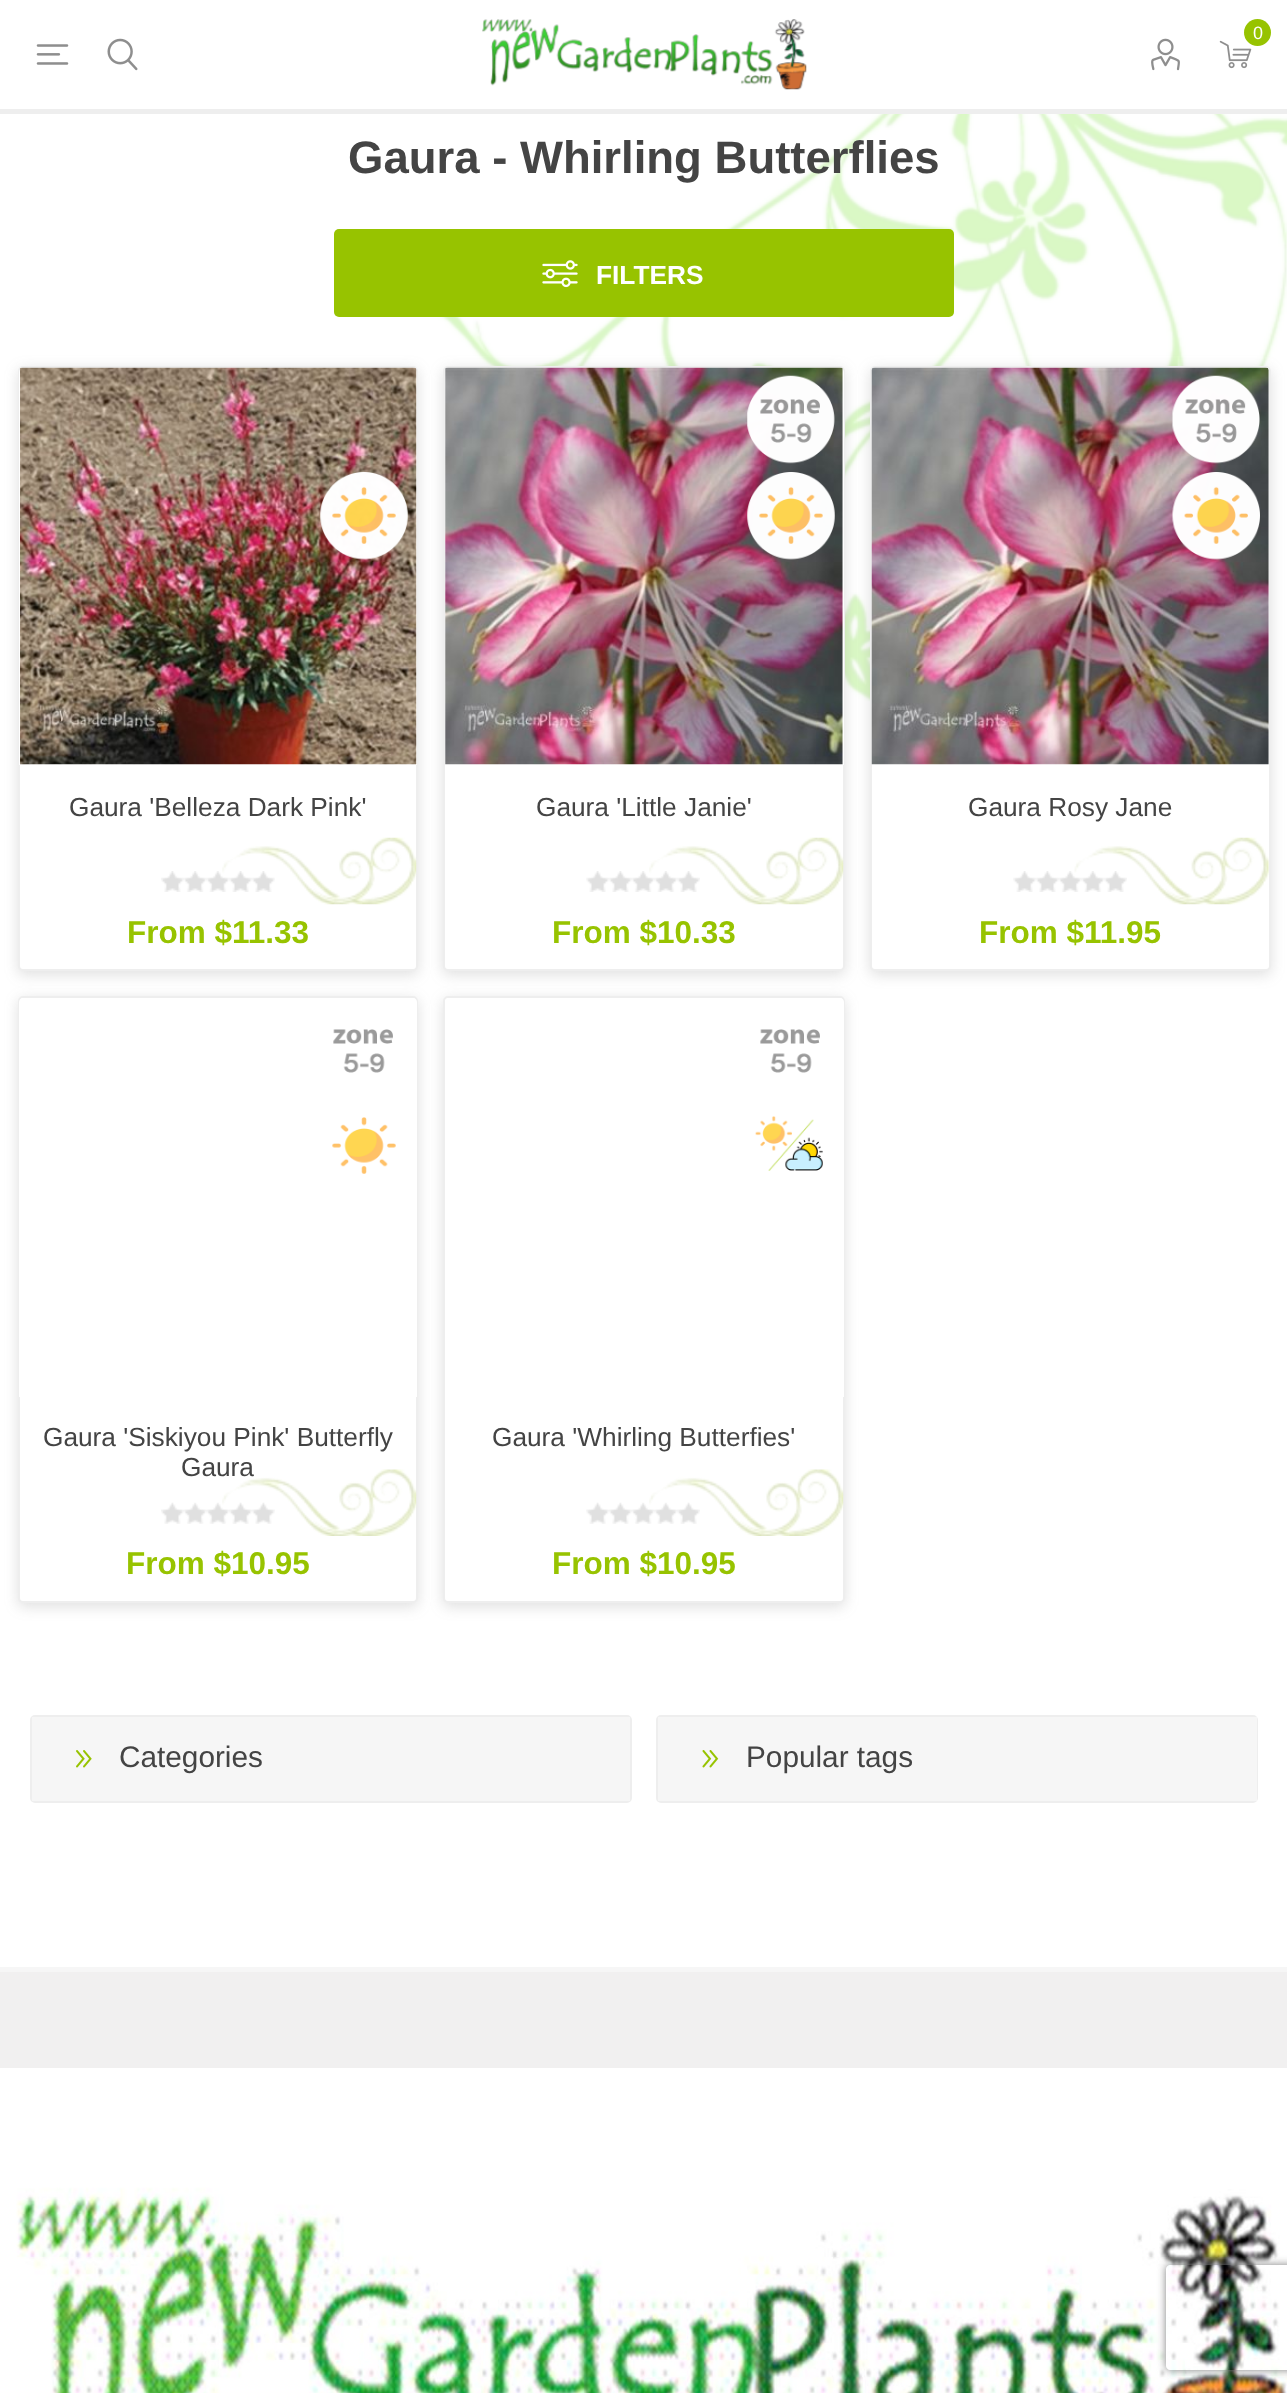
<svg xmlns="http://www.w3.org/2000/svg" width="1287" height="2393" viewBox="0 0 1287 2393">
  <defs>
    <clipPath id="clip1"><path d="M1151 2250H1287V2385H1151ZM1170 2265H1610C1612 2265 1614 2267 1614 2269V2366C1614 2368 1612 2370 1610 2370H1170C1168 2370 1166 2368 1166 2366V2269C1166 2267 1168 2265 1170 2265Z" clip-rule="evenodd"/></clipPath>
  </defs>
  <rect width="100%" height="100%" fill="rgb(255,255,255)"/>
  <rect x="0" y="109" width="1287" height="5" fill="rgb(238,238,238)"/>
  <image x="482" y="19" width="325" height="71" href="pic1.png"/>
  <image x="1219" y="40" width="33" height="29" href="pic2.png"/>
  <circle cx="1257.5" cy="32.5" r="13.5" fill="rgb(151,195,0)"/>
  <text x="1253" y="39" font-family="Liberation Sans" font-size="18" fill="rgb(255,255,255)">0</text>
  <image x="36" y="44" width="33" height="21" href="pic3.png"/>
  <image x="107" y="38" width="31" height="33" href="pic4.png"/>
  <image x="1151" y="38" width="29" height="33" href="pic5.png"/>
  <image x="411" y="114" width="876" height="588" href="pic6.png"/>
  <text x="348" y="173" font-family="Liberation Sans" font-size="45.5" font-weight="bold" fill="rgb(68,68,68)">Gaura - Whirling Butterflies</text>
  <rect x="334" y="229" width="620" height="88" rx="5" fill="rgb(151,195,0)"/>
  <image x="542" y="260" width="36" height="28" href="pic7.png"/>
  <text x="596" y="284" font-family="Liberation Sans" font-size="26.25" font-weight="bold" fill="rgb(255,255,255)">FILTERS</text>
  <rect x="18" y="369" width="400" height="606" rx="5" fill="rgba(99,99,99,0.2)" filter="blur(7px)"/>
  <rect x="19" y="367" width="398" height="603" rx="4" fill="rgb(255,255,255)" stroke="rgb(238,238,238)" stroke-width="2"/>
  <path d="M23 368H413C415 368 417 370 417 372V765H19V372C19 370 21 368 23 368Z" fill="rgb(255,255,255)"/>
  <image x="20" y="367" width="397" height="398" href="pic8.png"/>
  <image x="320" y="472" width="88" height="88" href="pic9.png"/>
  <image x="222" y="837" width="195" height="68" href="pic10.png"/>
  <text x="69" y="816" font-family="Liberation Sans" font-size="26.25" fill="rgb(68,68,68)">Gaura 'Belleza Dark Pink'</text>
  <image x="161" y="871" width="114" height="21" href="pic11.png"/>
  <text x="127" y="943" font-family="Liberation Sans" font-size="31.5" font-weight="bold" fill="rgb(151,195,0)">From $11.33</text>
  <rect x="443" y="369" width="402" height="606" rx="5" fill="rgba(99,99,99,0.2)" filter="blur(7px)"/>
  <rect x="444" y="367" width="400" height="603" rx="4" fill="rgb(255,255,255)" stroke="rgb(238,238,238)" stroke-width="2"/>
  <path d="M449 368H840C842 368 844 370 844 372V765H445V372C445 370 447 368 449 368Z" fill="rgb(255,255,255)"/>
  <image x="445" y="367" width="398" height="398" href="pic12.png"/>
  <image x="747" y="375" width="88" height="89" href="pic13.png"/>
  <image x="747" y="472" width="88" height="88" href="pic14.png"/>
  <image x="649" y="837" width="195" height="68" href="pic10.png"/>
  <text x="536" y="816" font-family="Liberation Sans" font-size="26.25" fill="rgb(68,68,68)">Gaura 'Little Janie'</text>
  <image x="586" y="871" width="114" height="21" href="pic15.png"/>
  <text x="552" y="943" font-family="Liberation Sans" font-size="31.5" font-weight="bold" fill="rgb(151,195,0)">From $10.33</text>
  <rect x="870" y="369" width="401" height="606" rx="5" fill="rgba(99,99,99,0.2)" filter="blur(7px)"/>
  <rect x="871" y="367" width="399" height="603" rx="4" fill="rgb(255,255,255)" stroke="rgb(238,238,238)" stroke-width="2"/>
  <image x="871" y="367" width="398" height="398" href="pic16.png"/>
  <image x="1172" y="375" width="88" height="89" href="pic17.png"/>
  <image x="1172" y="472" width="88" height="88" href="pic18.png"/>
  <image x="1074" y="837" width="195" height="68" href="pic19.png"/>
  <text x="968" y="816" font-family="Liberation Sans" font-size="26.25" fill="rgb(68,68,68)">Gaura Rosy Jane</text>
  <image x="1013" y="871" width="114" height="21" href="pic20.png"/>
  <text x="979" y="943" font-family="Liberation Sans" font-size="31.5" font-weight="bold" fill="rgb(151,195,0)">From $11.95</text>
  <rect x="18" y="999" width="400" height="608" rx="5" fill="rgba(99,99,99,0.2)" filter="blur(7px)"/>
  <rect x="19" y="997" width="398" height="605" rx="4" fill="rgb(255,255,255)" stroke="rgb(238,238,238)" stroke-width="2"/>
  <path d="M23 998H413C415 998 417 1000 417 1002V1397H19V1002C19 1000 21 998 23 998Z" fill="rgb(255,255,255)"/>
  <image x="333" y="1029" width="60" height="44" href="pic21.png"/>
  <image x="332" y="1117" width="64" height="57" href="pic22.png"/>
  <image x="222" y="1469" width="195" height="67" href="pic23.png"/>
  <g font-family="Liberation Sans" font-size="26.25" fill="rgb(68,68,68)">
    <text x="43" y="1446">Gaura 'Siskiyou Pink' Butterfly</text>
    <text x="181" y="1476">Gaura</text>
  </g>
  <image x="161" y="1502" width="114" height="22" href="pic24.png"/>
  <text x="126" y="1574" font-family="Liberation Sans" font-size="31.5" font-weight="bold" fill="rgb(151,195,0)">From $10.95</text>
  <rect x="443" y="999" width="402" height="608" rx="5" fill="rgba(99,99,99,0.2)" filter="blur(7px)"/>
  <rect x="444" y="997" width="400" height="605" rx="4" fill="rgb(255,255,255)" stroke="rgb(238,238,238)" stroke-width="2"/>
  <path d="M449 998H840C842 998 844 1000 844 1002V1397H445V1002C445 1000 447 998 449 998Z" fill="rgb(255,255,255)"/>
  <image x="760" y="1029" width="60" height="44" href="pic21.png"/>
  <image x="755" y="1116" width="68" height="55" href="pic25.png"/>
  <image x="649" y="1469" width="195" height="67" href="pic23.png"/>
  <text x="492" y="1446" font-family="Liberation Sans" font-size="26.25" fill="rgb(68,68,68)">Gaura 'Whirling Butterfies'</text>
  <image x="586" y="1502" width="114" height="22" href="pic26.png"/>
  <text x="552" y="1574" font-family="Liberation Sans" font-size="31.5" font-weight="bold" fill="rgb(151,195,0)">From $10.95</text>
  <rect x="31" y="1716" width="600" height="86" rx="4" fill="none" stroke="rgb(238,238,238)" stroke-width="2"/>
  <rect x="32" y="1717" width="598" height="84" fill="rgb(246,246,246)"/>
  <image x="76" y="1750" width="16" height="18" href="pic27.png"/>
  <text x="119" y="1767" font-family="Liberation Sans" font-size="29.75" fill="rgb(68,68,68)">Categories</text>
  <rect x="657" y="1716" width="600" height="86" rx="4" fill="none" stroke="rgb(238,238,238)" stroke-width="2"/>
  <rect x="658" y="1717" width="599" height="84" fill="rgb(246,246,246)"/>
  <image x="702" y="1750" width="17" height="18" href="pic28.png"/>
  <text x="746" y="1767" font-family="Liberation Sans" font-size="29.75" fill="rgb(68,68,68)">Popular tags</text>
  <rect x="0" y="1972" width="1287" height="96" fill="rgb(241,240,240)"/>
  <rect x="0" y="1967" width="1287" height="5" fill="rgb(246,246,246)"/>
  <image x="0" y="2068" width="1287" height="325" href="pic29.png"/>
  <g clip-path="url(#clip1)">
    <rect x="1166" y="2265" width="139" height="105" rx="4" fill="rgb(128,128,128)" filter="blur(4.5px)"/>
  </g>
</svg>
